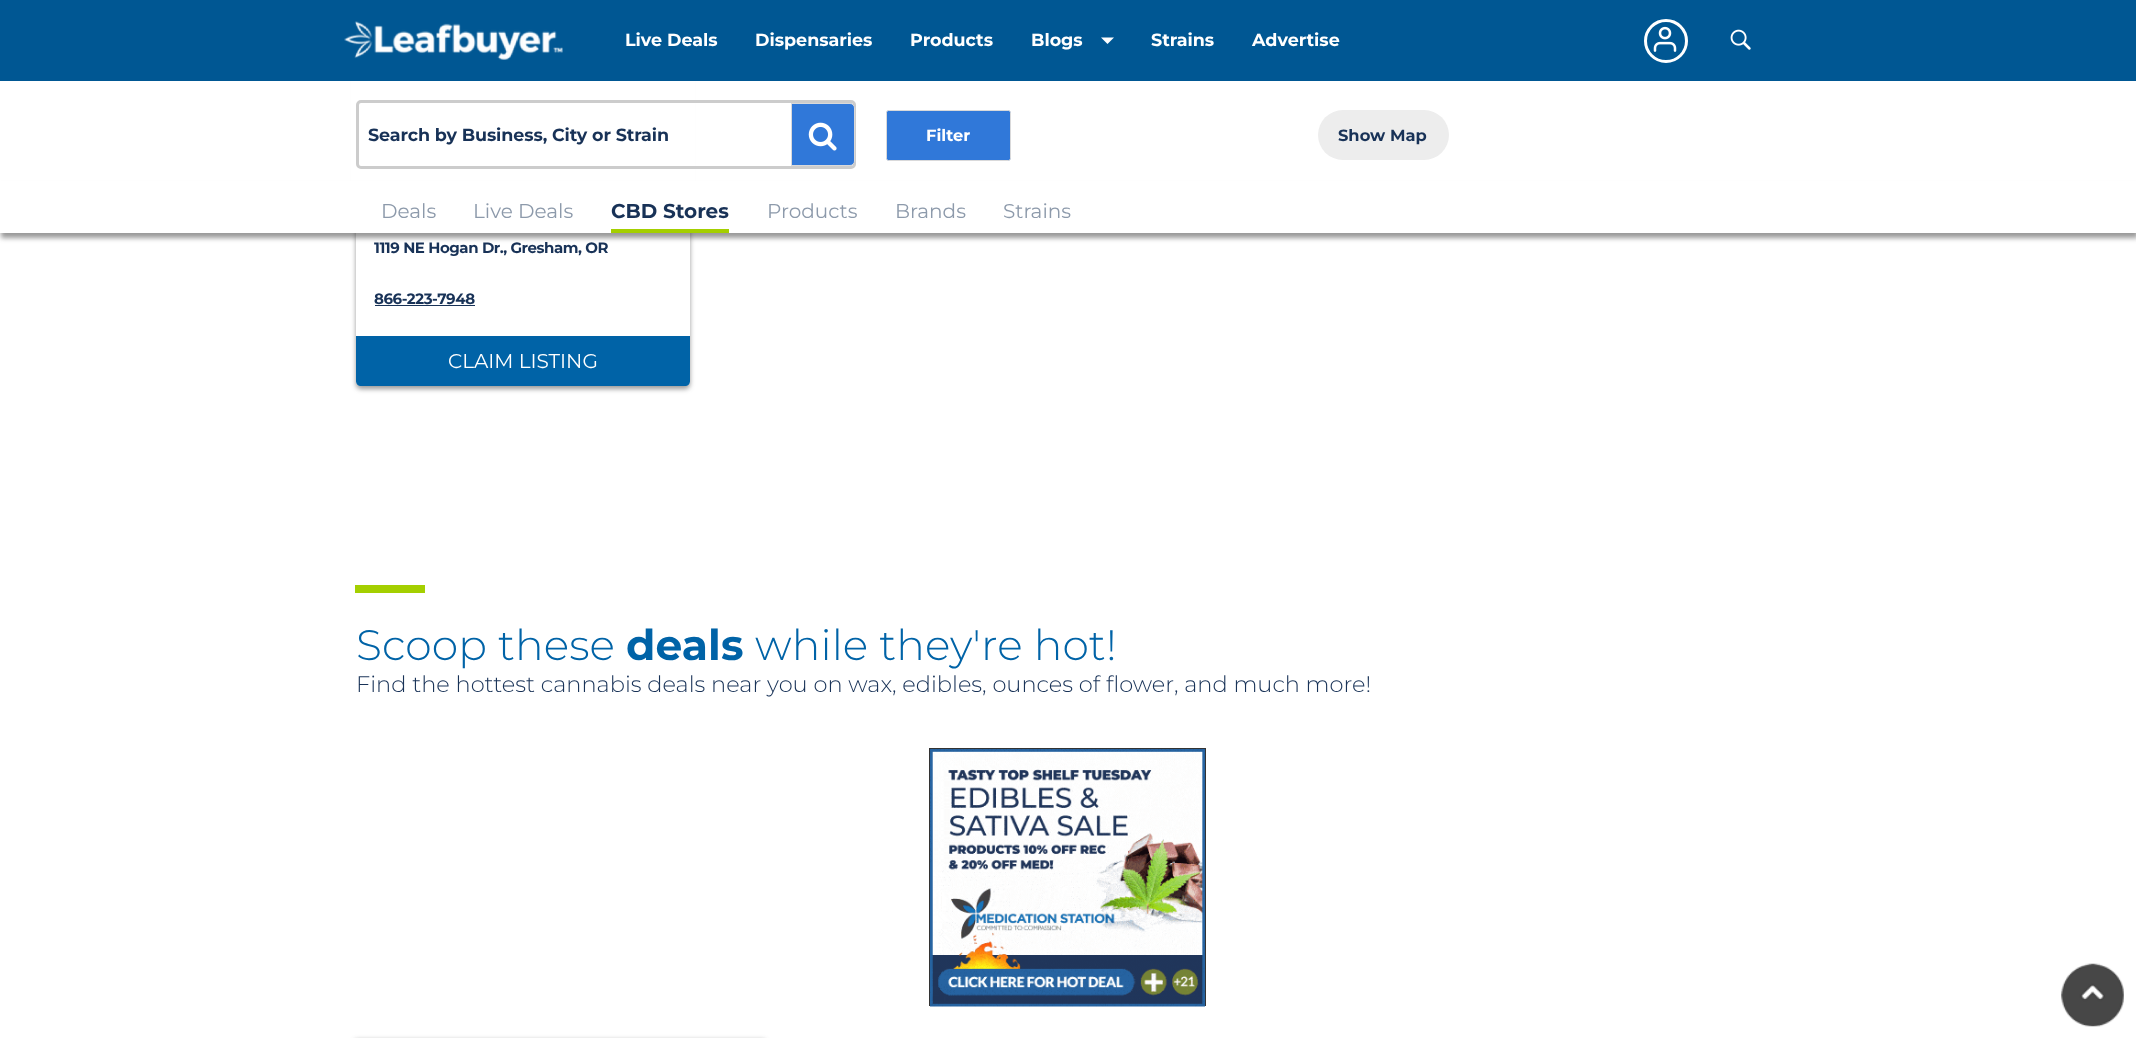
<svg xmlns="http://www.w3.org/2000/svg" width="2136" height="1038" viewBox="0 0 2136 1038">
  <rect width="100%" height="100%" fill="rgb(255,255,255)"/>
  <rect x="356" y="-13" width="334" height="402" rx="5" fill="rgba(51,51,51,0.5)" filter="blur(2.5px)"/>
  <rect x="356" y="-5" width="334" height="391" rx="5" fill="rgb(255,255,255)"/>
  <rect x="0" y="0" width="2136" height="81" fill="rgb(0,87,147)"/>
  <image x="344" y="21" width="219" height="39" href="pic1.png"/>
  <g font-family="Montserrat" font-size="17.5" font-weight="bold" fill="rgb(255,255,255)">
    <text x="625" y="46">Live Deals</text>
    <text x="755" y="46">Dispensaries</text>
    <text x="910" y="46">Products</text>
    <text x="1031" y="46">Blogs</text>
  </g>
  <path d="M1101 37.5H1114L1107.5 44Z" fill="rgb(255,255,255)"/>
  <g font-family="Montserrat" font-size="17.5" font-weight="bold" fill="rgb(255,255,255)">
    <text x="1151" y="46">Strains</text>
    <text x="1252" y="46">Advertise</text>
  </g>
  <circle cx="1666" cy="41" r="20.5" fill="none" stroke="rgb(255,255,255)" stroke-width="3"/>
  <image x="1653" y="26" width="24" height="26" href="pic2.png"/>
  <image x="1730" y="29" width="21" height="21" href="pic3.png"/>
  <rect x="351" y="81" width="344" height="100" fill="rgb(255,255,255)"/>
  <rect x="357.5" y="101.5" width="497" height="66" rx="3.5" fill="none" stroke="rgb(204,204,204)" stroke-width="3"/>
  <text x="368" y="141" font-family="Montserrat" font-size="17.5" font-weight="bold" letter-spacing="-0.1" fill="rgb(24,50,87)">Search by Business, City or Strain</text>
  <path d="M791.5 103.5H850C852.5 103.5 854.5 105.5 854.5 108V161C854.5 163.5 852.5 165.5 850 165.5H791.5Z" fill="rgb(48,120,217)" stroke="rgb(217,217,218)"/>
  <image x="808" y="122" width="29" height="29" href="pic4.png"/>
  <rect x="886.5" y="110.5" width="124" height="50" rx="2" fill="rgb(48,120,217)" stroke="rgb(217,217,218)"/>
  <text x="926" y="141" font-family="Montserrat" font-size="16.25" font-weight="bold" fill="rgb(255,255,255)">Filter</text>
  <rect x="1318" y="110" width="131" height="50" rx="25" fill="rgb(237,237,237)"/>
  <text x="1338" y="141" font-family="Montserrat" font-size="16.25" font-weight="bold" fill="rgb(24,50,87)">Show Map</text>
  <rect x="1" y="186" width="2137" height="52" fill="rgba(51,51,51,0.5)" filter="blur(2.5px)"/>
  <rect x="0" y="181" width="2136" height="52" fill="rgb(255,255,255)"/>
  <g font-family="Montserrat" font-size="20" fill="rgb(141,154,171)">
    <text x="381" y="218">Deals</text>
    <text x="473" y="218">Live Deals</text>
  </g>
  <text x="611" y="218" font-family="Montserrat" font-size="20" font-weight="bold" fill="rgb(24,50,87)">CBD Stores</text>
  <rect x="611" y="229" width="118" height="4" fill="rgb(164,207,0)"/>
  <g font-family="Montserrat" font-size="20" fill="rgb(141,154,171)">
    <text x="767" y="218">Products</text>
    <text x="895" y="218">Brands</text>
    <text x="1003" y="218">Strains</text>
  </g>
  <g font-family="Montserrat" font-size="15" font-weight="bold" letter-spacing="-0.45" fill="rgb(24,50,87)">
    <text x="374" y="253">1119 NE Hogan Dr., Gresham, OR</text>
    <text x="374" y="304">866-223-7948</text>
  </g>
  <rect x="375" y="305" width="100" height="1" fill="rgb(24,50,87)"/>
  <path d="M356 336H690V381C690 384 688 386 685 386H361C358 386 356 384 356 381Z" fill="rgb(0,99,167)"/>
  <text x="448" y="368" font-family="Montserrat" font-size="20" fill="rgb(255,255,255)">CLAIM LISTING</text>
  <rect x="355" y="585" width="70" height="8" fill="rgb(164,207,0)"/>
  <text x="356" y="660" font-family="Montserrat" font-size="42.5" font-weight="300" letter-spacing="0.1" fill="rgb(0,99,167)">Scoop these</text>
  <text x="626" y="660" font-family="Montserrat" font-size="42.5" font-weight="bold" letter-spacing="0.1" fill="rgb(0,99,167)">deals</text>
  <text x="755" y="660" font-family="Montserrat" font-size="42.5" font-weight="300" letter-spacing="0.1" fill="rgb(0,99,167)">while they're hot!</text>
  <text x="356" y="692" font-family="Montserrat" font-size="22.5" font-weight="300" fill="rgb(24,50,87)">Find the hottest cannabis deals near you on wax, edibles, ounces of flower, and much more!</text>
  <rect x="929.5" y="748.5" width="276" height="257" fill="none" stroke="rgb(51,51,51)"/>
  <image x="930" y="749" width="275" height="258" href="pic5.png"/>
  <rect x="355" y="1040" width="410" height="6" fill="rgba(51,51,51,0.5)" filter="blur(2.5px)"/>
  <image x="2061" y="963" width="63" height="64" href="pic6.png"/>
</svg>
